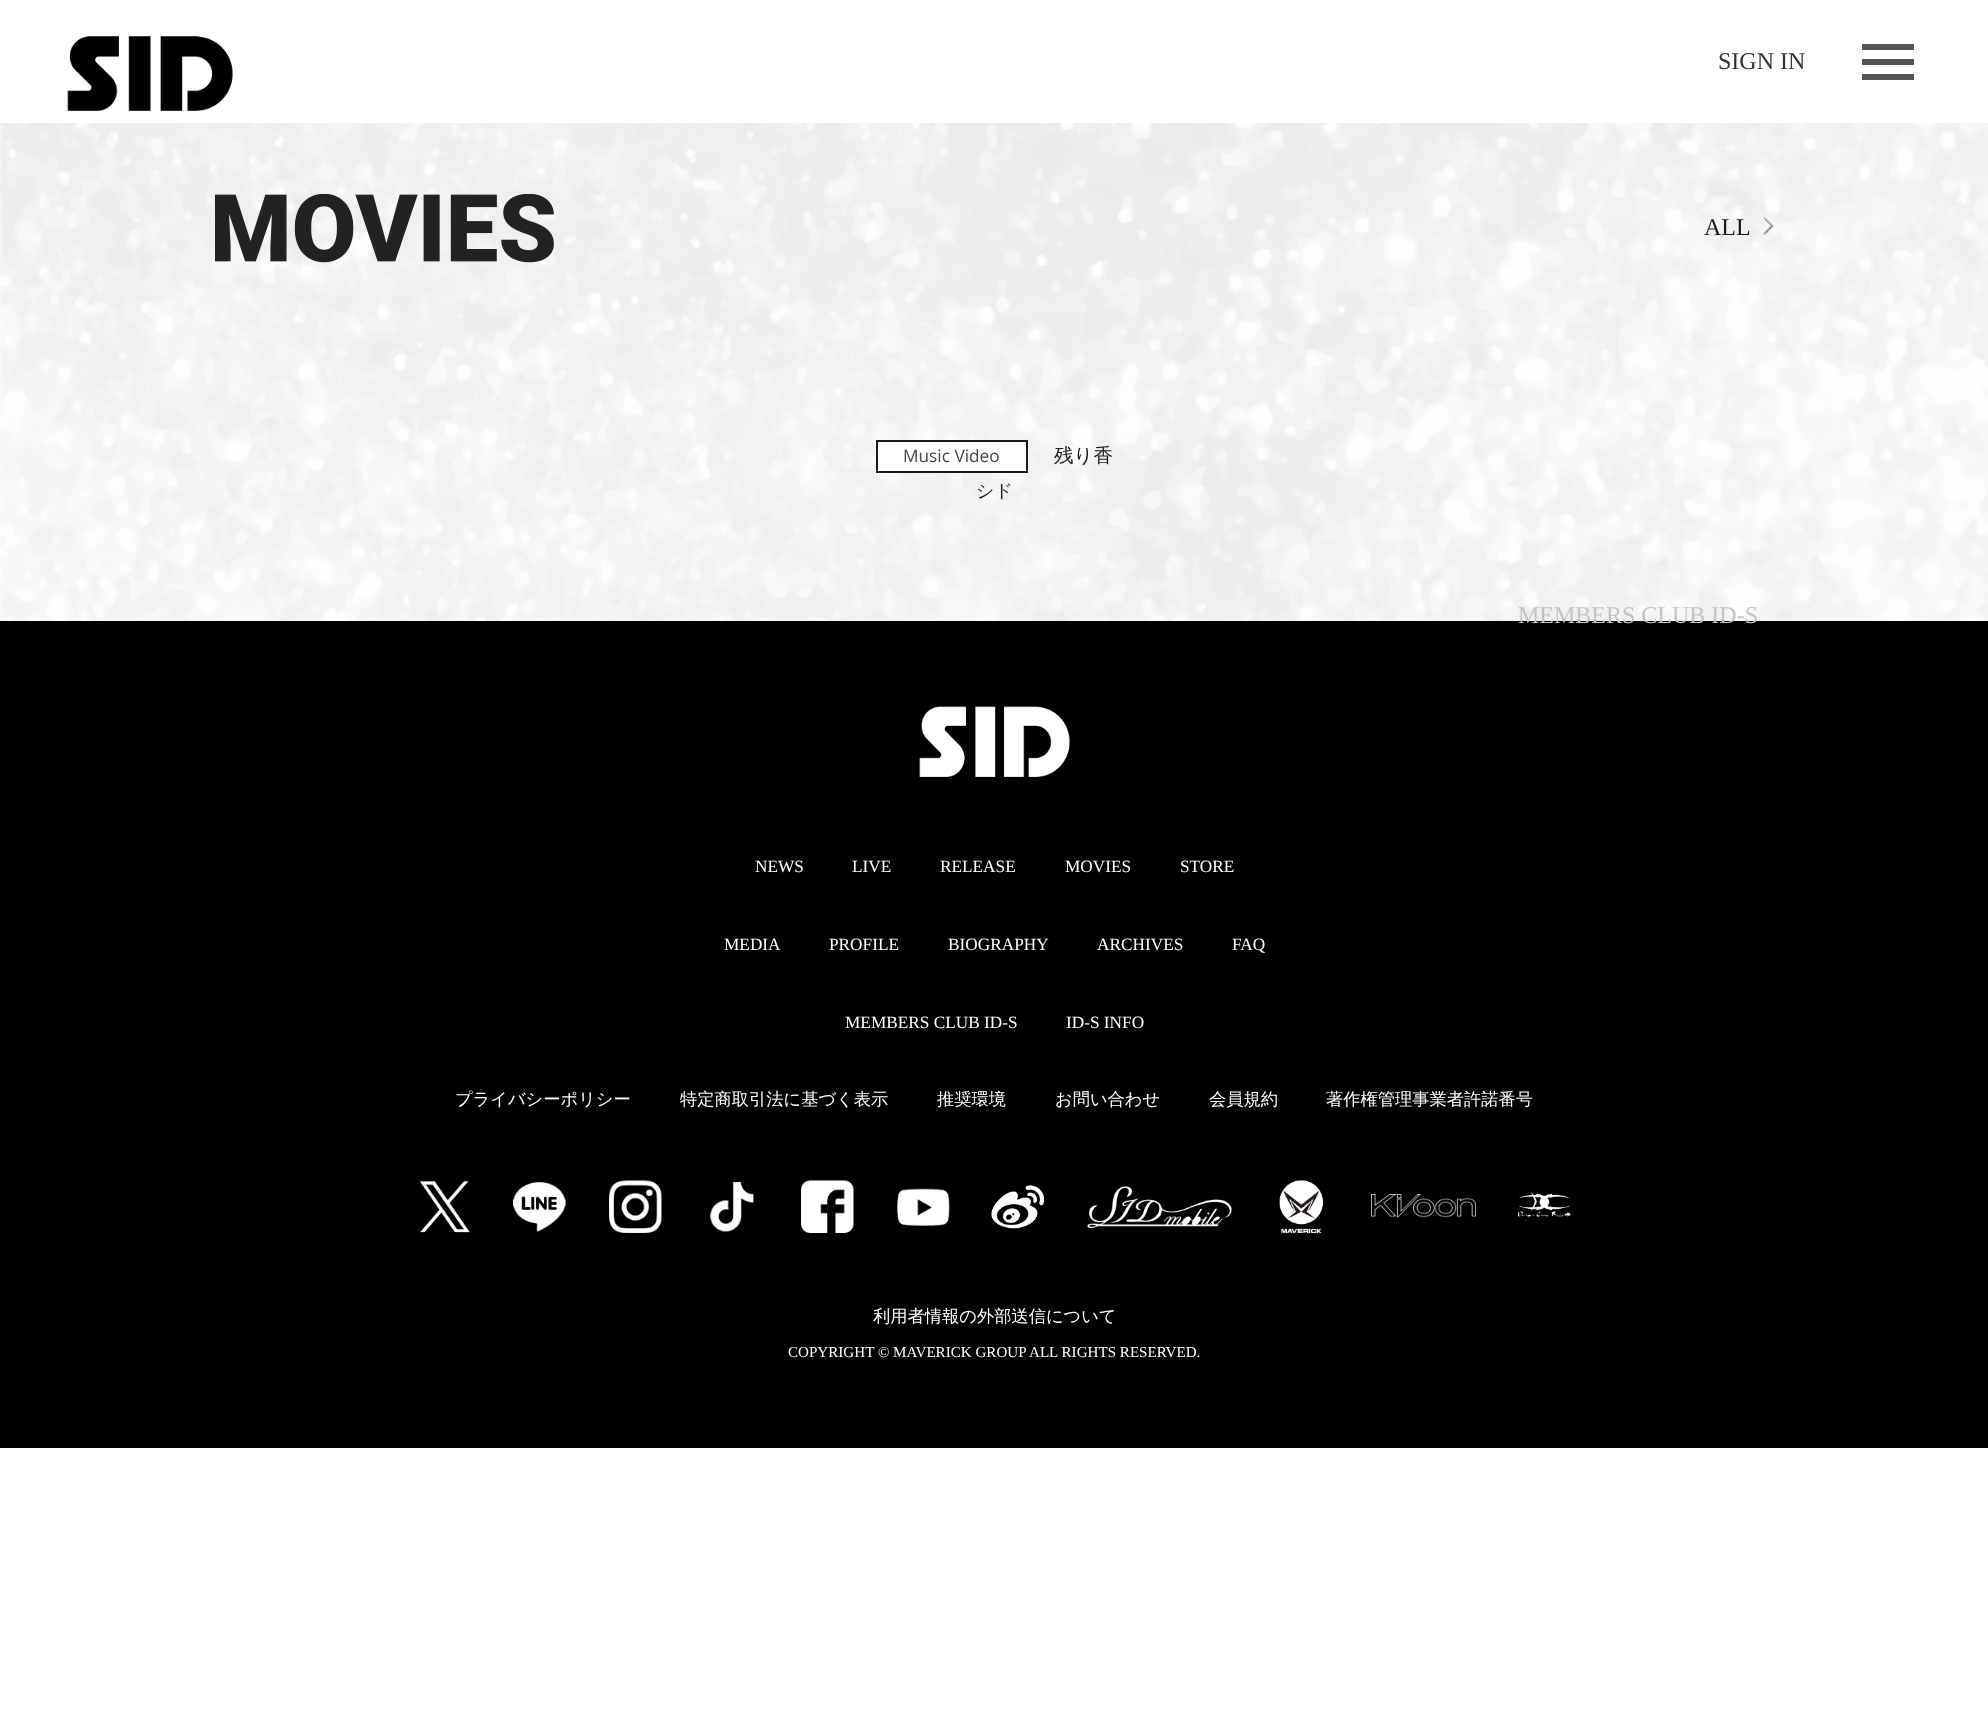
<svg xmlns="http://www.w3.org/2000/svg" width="1988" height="1715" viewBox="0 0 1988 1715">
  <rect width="100%" height="100%" fill="rgb(255,255,255)"/>
  <image x="67" y="36" width="166" height="75" href="pic1.png"/>
  <text x="1718" y="69" font-family="Liberation Serif" font-size="24" fill="rgb(51,51,51)">SIGN IN</text>
  <rect x="1862" y="44" width="52" height="6" fill="rgb(85,85,85)"/>
  <rect x="1862" y="59" width="52" height="6" fill="rgb(85,85,85)"/>
  <rect x="1862" y="74" width="52" height="6" fill="rgb(85,85,85)"/>
  <image x="0" y="123" width="1988" height="498" href="pic2.png"/>
  <rect x="0" y="621" width="1988" height="827" fill="rgb(0,0,0)"/>
  <text x="1518" y="623" font-family="Liberation Serif" font-size="24" fill="rgb(196,196,196)">MEMBERS CLUB ID-S</text>
  <image x="215" y="194" width="339" height="69" href="pic3.png"/>
  <text x="1704" y="235" font-family="Liberation Serif" font-size="24" fill="rgb(25,25,25)">ALL</text>
  <image x="1763" y="217" width="11" height="18" href="pic4.png"/>
  <rect x="877" y="441" width="150" height="31" fill="rgb(255,255,255)" stroke="rgb(25,25,25)" stroke-width="2"/>
  <text x="903" y="462" font-family="Open Sans" font-size="17.25" fill="rgb(69,69,69)">Music Video</text>
  <text x="1054" y="462" font-family="WenQuanYi Zen Hei" font-size="19.5" font-weight="500" fill="rgb(25,25,25)">残り香</text>
  <text x="976" y="497" font-family="WenQuanYi Zen Hei" font-size="18" font-weight="500" fill="rgb(25,25,25)">シド</text>
  <image x="919" y="706" width="151" height="71" href="pic5.png"/>
  <g font-family="Liberation Serif" font-size="17.25" fill="rgb(255,255,255)">
    <text x="755" y="872">NEWS</text>
    <text x="852" y="872">LIVE</text>
    <text x="940" y="872">RELEASE</text>
    <text x="1065" y="872">MOVIES</text>
    <text x="1180" y="872">STORE</text>
    <text x="724" y="950">MEDIA</text>
    <text x="829" y="950">PROFILE</text>
    <text x="948" y="950">BIOGRAPHY</text>
    <text x="1097" y="950">ARCHIVES</text>
    <text x="1232" y="950">FAQ</text>
    <text x="845" y="1028">MEMBERS CLUB ID-S</text>
    <text x="1066" y="1028">ID-S INFO</text>
  </g>
  <g font-family="WenQuanYi Zen Hei" font-size="17.25" font-weight="500" fill="rgb(255,255,255)">
    <text x="455" y="1105">プライバシーポリシー</text>
    <text x="680" y="1105">特定商取引法に基づく表示</text>
    <text x="937" y="1105">推奨環境</text>
    <text x="1055" y="1105">お問い合わせ</text>
    <text x="1209" y="1105">会員規約</text>
    <text x="1326" y="1105">著作権管理事業者許諾番号</text>
  </g>
  <image x="420" y="1181" width="50" height="52" href="pic6.png"/>
  <image x="513" y="1182" width="53" height="50" href="pic7.png"/>
  <image x="609" y="1180" width="53" height="53" href="pic8.png"/>
  <image x="710" y="1182" width="44" height="50" href="pic9.png"/>
  <image x="801" y="1180" width="53" height="53" href="pic10.png"/>
  <image x="897" y="1188" width="53" height="38" href="pic11.png"/>
  <image x="991" y="1185" width="53" height="44" href="pic12.png"/>
  <image x="1087" y="1186" width="145" height="42" href="pic13.png"/>
  <image x="1279" y="1180" width="44" height="53" href="pic14.png"/>
  <image x="1371" y="1194" width="105" height="24" href="pic15.png"/>
  <image x="1518" y="1192" width="53" height="29" href="pic16.png"/>
  <text x="873" y="1322" font-family="WenQuanYi Zen Hei" font-size="17.25" font-weight="500" fill="rgb(255,255,255)">利用者情報の外部送信について</text>
  <text x="788" y="1357" font-family="Liberation Serif" font-size="15.1" fill="rgb(255,255,255)">COPYRIGHT © MAVERICK GROUP ALL RIGHTS RESERVED.</text>
</svg>
